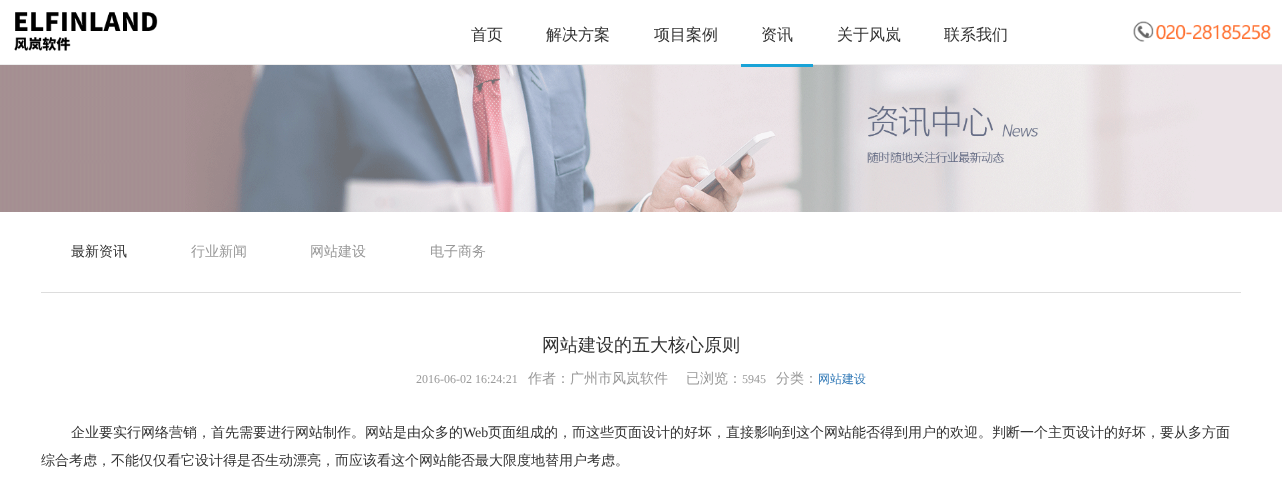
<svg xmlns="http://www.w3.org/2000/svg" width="1282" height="487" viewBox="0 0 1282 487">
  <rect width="100%" height="100%" fill="rgb(255,255,255)"/>
  <rect x="0" y="64" width="1282" height="1" fill="rgb(238,238,238)"/>
  <image x="14" y="12" width="144" height="39" href="pic1.png"/>
  <g font-family="WenQuanYi Zen Hei" font-size="16" font-weight="500" fill="rgb(51,51,51)">
    <text x="471" y="40">首页</text>
    <text x="546" y="40">解决方案</text>
    <text x="654" y="40">项目案例</text>
    <text x="761" y="40">资讯</text>
    <text x="837" y="40">关于风岚</text>
    <text x="944" y="40">联系我们</text>
  </g>
  <image x="0" y="65" width="1282" height="147" href="pic3.png"/>
  <rect x="741" y="64" width="72" height="3" fill="rgb(25,163,215)"/>
  <image x="1133" y="21" width="138" height="21" href="pic2.png"/>
  <rect x="41" y="292" width="1200" height="1" fill="rgb(221,221,221)"/>
  <text x="71" y="256" font-family="WenQuanYi Zen Hei" font-size="14" font-weight="500" fill="rgb(51,51,51)">最新资讯</text>
  <g font-family="WenQuanYi Zen Hei" font-size="14" font-weight="500" fill="rgb(153,153,153)">
    <text x="191" y="256">行业新闻</text>
    <text x="310" y="256">网站建设</text>
    <text x="430" y="256">电子商务</text>
  </g>
  <text x="542" y="351" font-family="WenQuanYi Zen Hei" font-size="18" font-weight="500" fill="rgb(51,51,51)">网站建设的五大核心原则</text>
  <text x="416" y="383" font-family="Liberation Serif" font-size="12" fill="rgb(153,153,153)">2016-06-02 16:24:21</text>
  <g font-family="WenQuanYi Zen Hei" font-size="14" font-weight="500" fill="rgb(153,153,153)">
    <text x="528" y="383">作者：广州市风岚软件</text>
    <text x="686" y="383">已浏览：</text>
  </g>
  <text x="742" y="383" font-family="Liberation Serif" font-size="12" fill="rgb(153,153,153)">5945</text>
  <text x="776" y="383" font-family="WenQuanYi Zen Hei" font-size="14" font-weight="500" fill="rgb(153,153,153)">分类：</text>
  <text x="818" y="383" font-family="WenQuanYi Zen Hei" font-size="12" font-weight="500" fill="rgb(51,122,183)">网站建设</text>
  <text x="71" y="437" font-family="WenQuanYi Zen Hei" font-size="14" font-weight="500" fill="rgb(51,51,51)">企业要实行网络营销，首先需要进行网站制作。网站是由众多的</text>
  <text x="463" y="437" font-family="Liberation Serif" font-size="14" fill="rgb(51,51,51)">Web</text>
  <g font-family="WenQuanYi Zen Hei" font-size="14" font-weight="500" fill="rgb(51,51,51)">
    <text x="488" y="437">页面组成的，而这些页面设计的好坏，直接影响到这个网站能否得到用户的欢迎。判断一个主页设计的好坏，要从多方面</text>
    <text x="41" y="465">综合考虑，不能仅仅看它设计得是否生动漂亮，而应该看这个网站能否最大限度地替用户考虑。</text>
  </g>
</svg>
